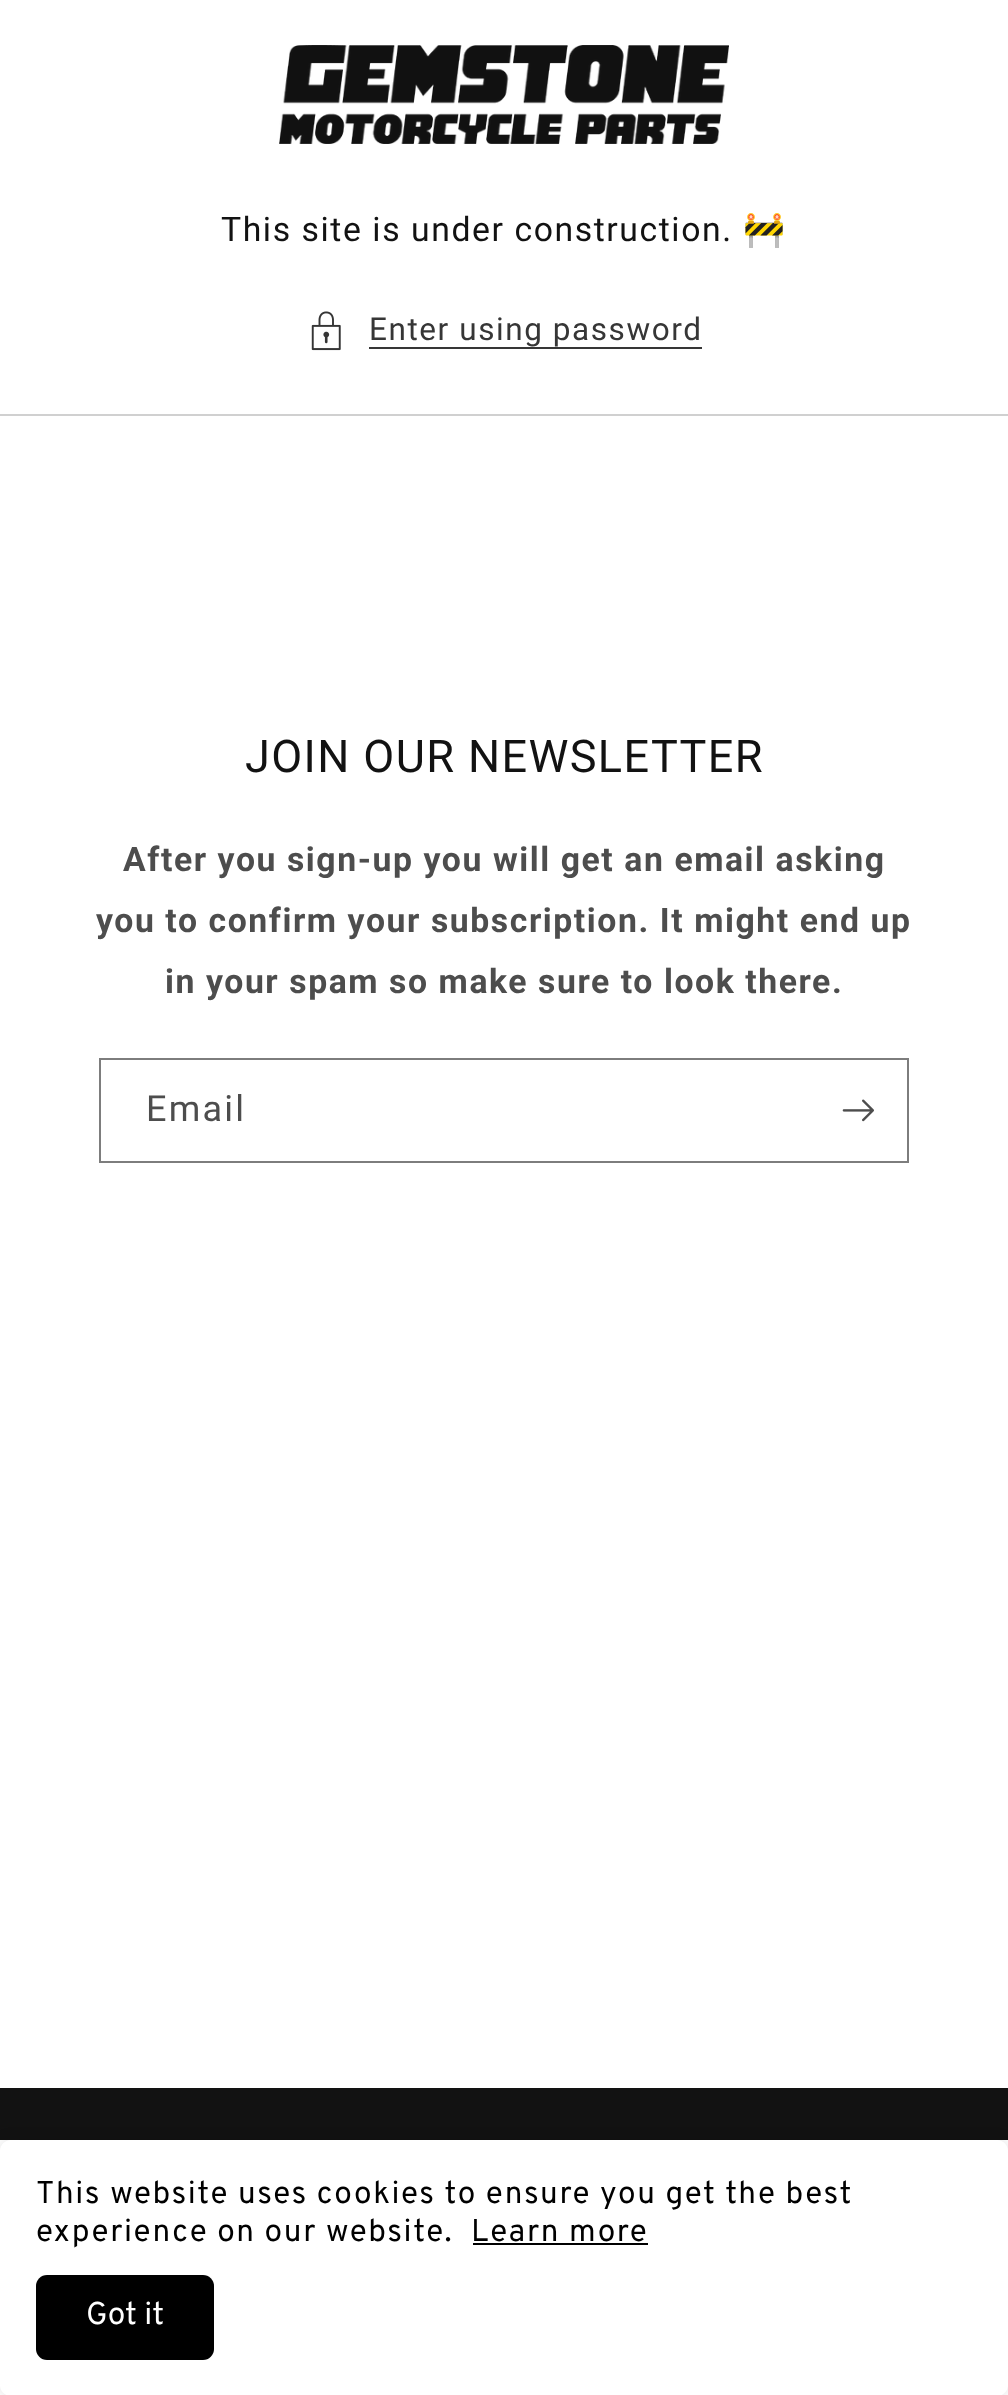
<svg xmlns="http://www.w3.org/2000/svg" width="1008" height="2395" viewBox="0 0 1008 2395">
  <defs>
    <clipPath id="clip1"><path d="M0 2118H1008V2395H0ZM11 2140H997C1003 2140 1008 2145 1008 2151V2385C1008 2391 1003 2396 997 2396H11C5 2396 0 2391 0 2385V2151C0 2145 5 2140 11 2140Z" clip-rule="evenodd"/></clipPath>
  </defs>
  <rect width="100%" height="100%" fill="rgb(255,255,255)"/>
  <image x="279" y="45" width="450" height="99" href="pic1.png"/>
  <text x="221" y="241" font-family="Roboto" font-size="33.75" letter-spacing="1.57" fill="rgb(18,18,18)">This site is under construction.</text>
  <text x="743" y="241" font-family="Noto Color Emoji" font-size="33.75" letter-spacing="1.57" fill="rgb(18,18,18)">🚧</text>
  <image x="311" y="311" width="30" height="40" href="pic2.png"/>
  <text x="369" y="340" font-family="Roboto" font-size="31.5" letter-spacing="1.57" fill="rgb(54,54,54)">Enter using password</text>
  <rect x="369" y="347" width="333" height="2" fill="rgb(54,54,54)"/>
  <rect x="0" y="414" width="1008" height="2" fill="rgb(208,208,208)"/>
  <text x="245" y="772" font-family="Roboto" font-size="45" letter-spacing="1.4" fill="rgb(18,18,18)">JOIN OUR NEWSLETTER</text>
  <g font-family="Roboto" font-size="33.75" font-weight="bold" letter-spacing="1.57" fill="rgb(77,77,77)">
    <text x="123" y="871">After you sign-up you will get an email asking</text>
    <text x="96" y="932">you to confirm your subscription. It might end up</text>
    <text x="165" y="993">in your spam so make sure to look there.</text>
  </g>
  <rect x="100" y="1059" width="808" height="103" fill="none" stroke="rgb(125,125,125)" stroke-width="2"/>
  <text x="146" y="1121" font-family="Roboto" font-size="36" letter-spacing="2.25" fill="rgb(77,77,77)">Email</text>
  <image x="842" y="1099" width="32" height="23" href="pic3.png"/>
  <rect x="0" y="2088" width="1008" height="52" fill="rgb(18,18,18)"/>
  <g clip-path="url(#clip1)">
    <rect x="0" y="2140" width="1008" height="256" rx="11" fill="rgba(0,0,0,0.12)" filter="blur(7px)"/>
  </g>
  <g font-family="Overpass" font-size="31.5" letter-spacing="1.57" fill="rgb(0,0,0)">
    <text>
      <tspan x="36" y="2203">This website uses cookies to ensure you get the best</tspan>
      <tspan x="36" y="2241">experience on our website.</tspan>
    </text>
    <text x="471" y="2241">Learn more</text>
  </g>
  <rect x="473" y="2243" width="175" height="2" fill="rgb(0,0,0)"/>
  <rect x="36" y="2275" width="178" height="85" rx="11" fill="rgb(0,0,0)"/>
  <text x="86" y="2324" font-family="Overpass" font-size="31.5" fill="rgb(255,255,255)">Got it</text>
</svg>
